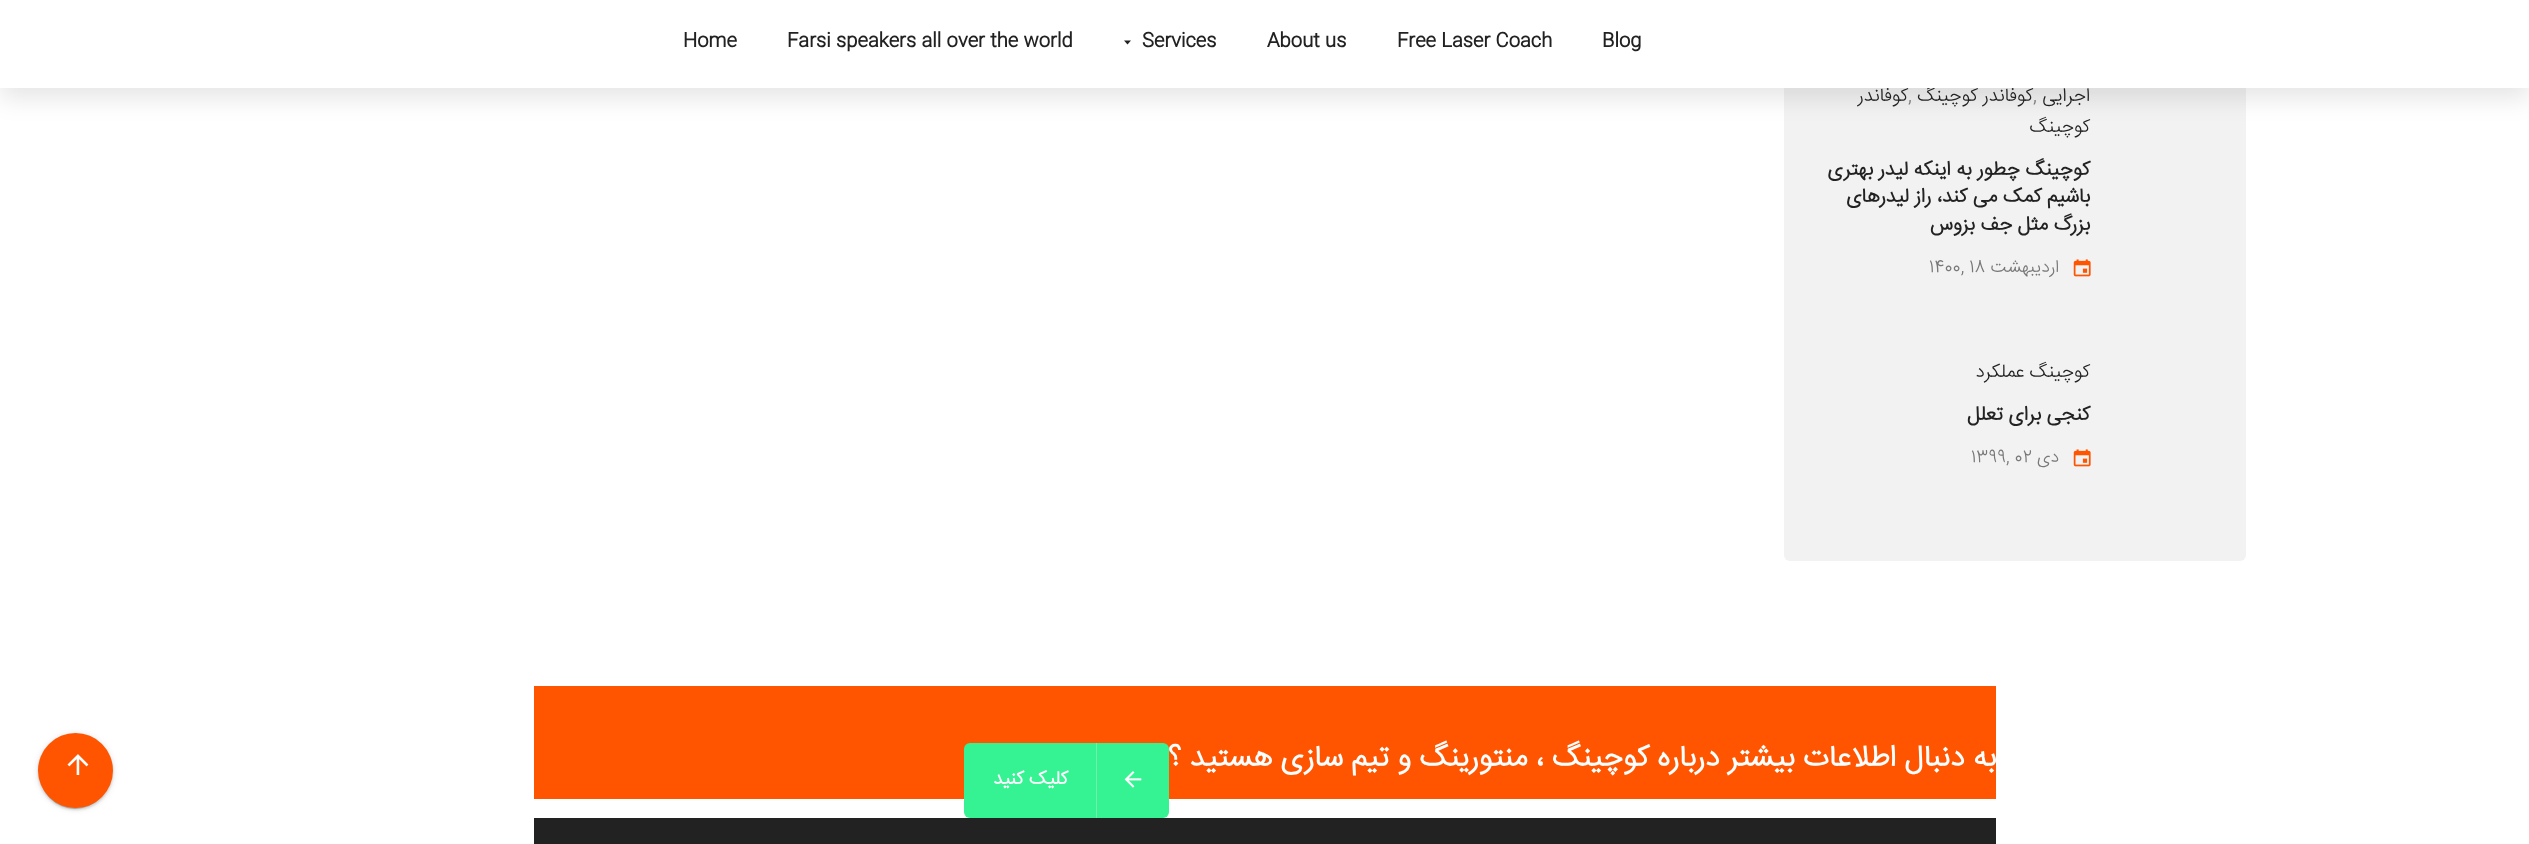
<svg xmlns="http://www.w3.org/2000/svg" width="2529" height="844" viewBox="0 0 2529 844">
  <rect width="100%" height="100%" fill="rgb(255,255,255)"/>
  <rect x="1784" y="-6" width="462" height="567" rx="6" fill="rgb(242,242,243)"/>
  <rect x="0" y="10" width="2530" height="88" fill="rgba(0,0,0,0.1)" filter="blur(12.5px)"/>
  <text x="2033" y="101" font-family="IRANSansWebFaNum" font-size="18.75" font-weight="300" fill="rgb(119,119,119)">,</text>
  <text x="2033" y="101" font-family="IRANSansWebFaNum" font-size="18.75" font-weight="300" direction="rtl" fill="rgb(34,34,34)">کوفاندر کوچینگ</text>
  <text x="1908" y="101" font-family="IRANSansWebFaNum" font-size="18.75" font-weight="300" fill="rgb(119,119,119)">,</text>
  <text x="1908" y="101" font-family="IRANSansWebFaNum" font-size="18.75" font-weight="300" direction="rtl" fill="rgb(34,34,34)">کوفاندر</text>
  <rect x="0" y="0" width="2529" height="88" fill="rgb(255,255,255)"/>
  <g font-family="IRANSansWebFaNum" font-size="18.75" font-weight="bold" fill="rgb(34,34,34)">
    <text x="1602" y="46">Blog</text>
    <text x="1397" y="46">Free Laser Coach</text>
    <text x="1267" y="46">About us</text>
    <text x="1142" y="46">Services</text>
  </g>
  <path d="M1124 40.5H1131L1127.5 44.5Z" fill="rgb(34,34,34)"/>
  <g font-family="IRANSansWebFaNum" font-size="18.75" font-weight="bold" fill="rgb(34,34,34)">
    <text x="787" y="46">Farsi speakers all over the world</text>
    <text x="683" y="46">Home</text>
  </g>
  <g font-family="IRANSansWebFaNum" font-size="18.75" font-weight="300" direction="rtl" fill="rgb(34,34,34)">
    <text>
      <tspan x="2090" y="101">اجرایی</tspan>
      <tspan x="2090" y="132">کوچینگ</tspan>
    </text>
  </g>
  <g font-family="IRANSansWebFaNum" font-size="20" font-weight="bold" direction="rtl" fill="rgb(34,34,34)">
    <text>
      <tspan x="2090" y="175">کوچینگ چطور به اینکه لیدر بهتری</tspan>
      <tspan x="2090" y="202">باشیم کمک می کند، راز لیدرهای</tspan>
      <tspan x="2090" y="230">بزرگ مثل جف بزوس</tspan>
    </text>
  </g>
  <image x="2073" y="259" width="18" height="18" href="pic1.png"/>
  <text x="2059" y="272" font-family="IRANSansWebFaNum" font-size="17.5" font-weight="300" direction="rtl" fill="rgb(119,119,119)">اردیبهشت</text>
  <text x="1929" y="272" font-family="IRANSansWebFaNum" font-size="17.5" font-weight="300" fill="rgb(119,119,119)">1400, 18</text>
  <text x="2090" y="377" font-family="IRANSansWebFaNum" font-size="18.75" font-weight="300" direction="rtl" fill="rgb(34,34,34)">کوچینگ عملکرد</text>
  <text x="2090" y="420" font-family="IRANSansWebFaNum" font-size="20" font-weight="bold" direction="rtl" fill="rgb(34,34,34)">کنجی برای تعلل</text>
  <image x="2073" y="449" width="18" height="18" href="pic1.png"/>
  <text x="2059" y="462" font-family="IRANSansWebFaNum" font-size="17.5" font-weight="300" direction="rtl" fill="rgb(119,119,119)">دی</text>
  <text x="1971" y="462" font-family="IRANSansWebFaNum" font-size="17.5" font-weight="300" fill="rgb(119,119,119)">1399, 02</text>
  <rect x="534" y="686" width="1462" height="113" fill="rgb(255,85,1)"/>
  <text x="1996" y="766" font-family="IRANSansWebFaNum" font-size="30" font-weight="bold" direction="rtl" fill="rgb(255,255,255)">به دنبال اطلاعات بیشتر درباره کوچینگ ، منتورینگ و تیم سازی هستید ؟</text>
  <rect x="964" y="743" width="205" height="75" rx="6" fill="rgb(53,242,147)"/>
  <rect x="1096" y="743" width="1" height="75" fill="rgb(109,241,174)"/>
  <image x="1124" y="771" width="18" height="17" href="pic2.png"/>
  <text x="1068" y="784" font-family="IRANSansWebFaNum" font-size="18.75" font-weight="bold" direction="rtl" fill="rgb(255,255,255)">کلیک کنید</text>
  <rect x="534" y="818" width="1462" height="26" fill="rgb(34,34,34)"/>
  <rect x="40" y="739" width="70" height="70" rx="35" fill="rgba(0,0,0,0.2)" filter="blur(0.5px)"/>
  <rect x="38" y="734" width="75" height="75" rx="37.5" fill="rgba(0,0,0,0.12)" filter="blur(3px)"/>
  <rect x="38" y="735" width="75" height="75" rx="37.5" fill="rgba(0,0,0,0.14)" filter="blur(1px)"/>
  <circle cx="75.5" cy="770.5" r="37.5" fill="rgb(255,85,1)"/>
  <image x="67" y="754" width="22" height="21" href="pic3.png"/>
</svg>
